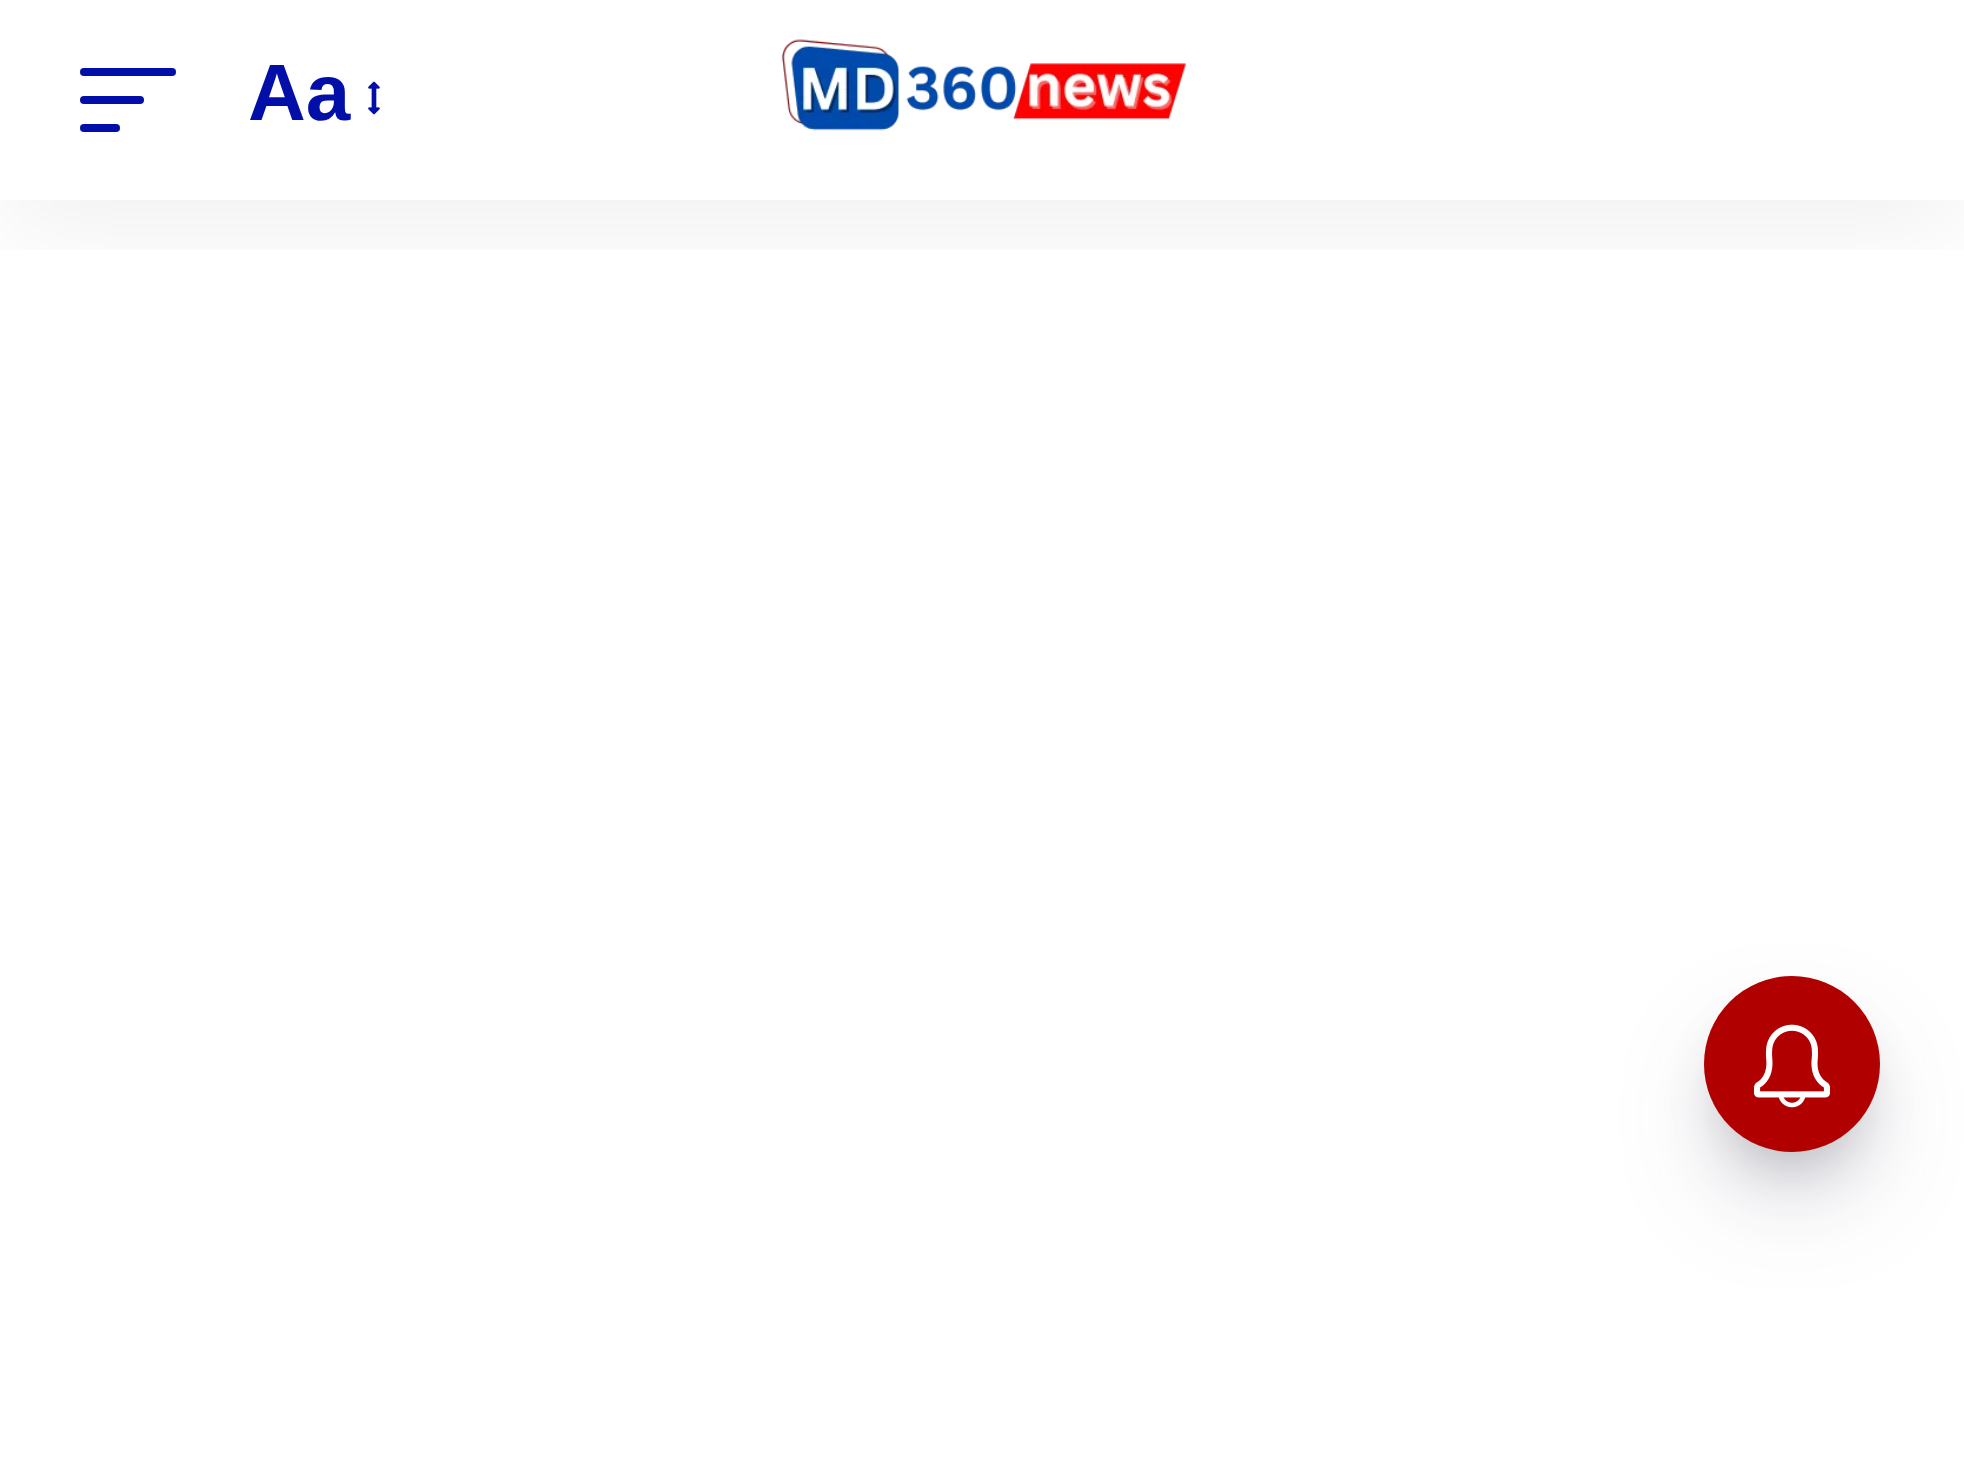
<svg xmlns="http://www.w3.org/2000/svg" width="1964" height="1471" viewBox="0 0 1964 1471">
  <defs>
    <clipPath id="clip1"><rect x="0" y="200" width="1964" height="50"/></clipPath>
  </defs>
  <rect width="100%" height="100%" fill="rgb(255,255,255)"/>
  <g clip-path="url(#clip1)">
    <rect x="0" y="16" width="1964" height="200" fill="rgba(0,0,0,0.07)" filter="blur(60px)"/>
  </g>
  <rect x="80" y="68" width="96" height="8" rx="4" fill="rgb(1,15,168)"/>
  <rect x="80" y="96" width="64" height="8" rx="4" fill="rgb(1,15,168)"/>
  <rect x="80" y="124" width="40" height="8" rx="4" fill="rgb(1,15,168)"/>
  <text x="248" y="120" font-family="Liberation Sans" font-size="80" font-weight="bold" fill="rgb(1,15,168)">Aa</text>
  <image x="368" y="81" width="12" height="34" href="pic1.png"/>
  <image x="781" y="39" width="405" height="92" href="pic2.png"/>
  <rect x="1736" y="1040" width="112" height="112" rx="56" fill="rgba(0,0,0,0.3)" filter="blur(32px)"/>
  <rect x="1724" y="1048" width="136" height="136" rx="68" fill="rgba(50,50,93,0.25)" filter="blur(54px)"/>
  <circle cx="1792" cy="1064" r="88" fill="rgb(177,0,0)"/>
  <image x="1754" y="1024" width="76" height="84" href="pic3.png"/>
</svg>
